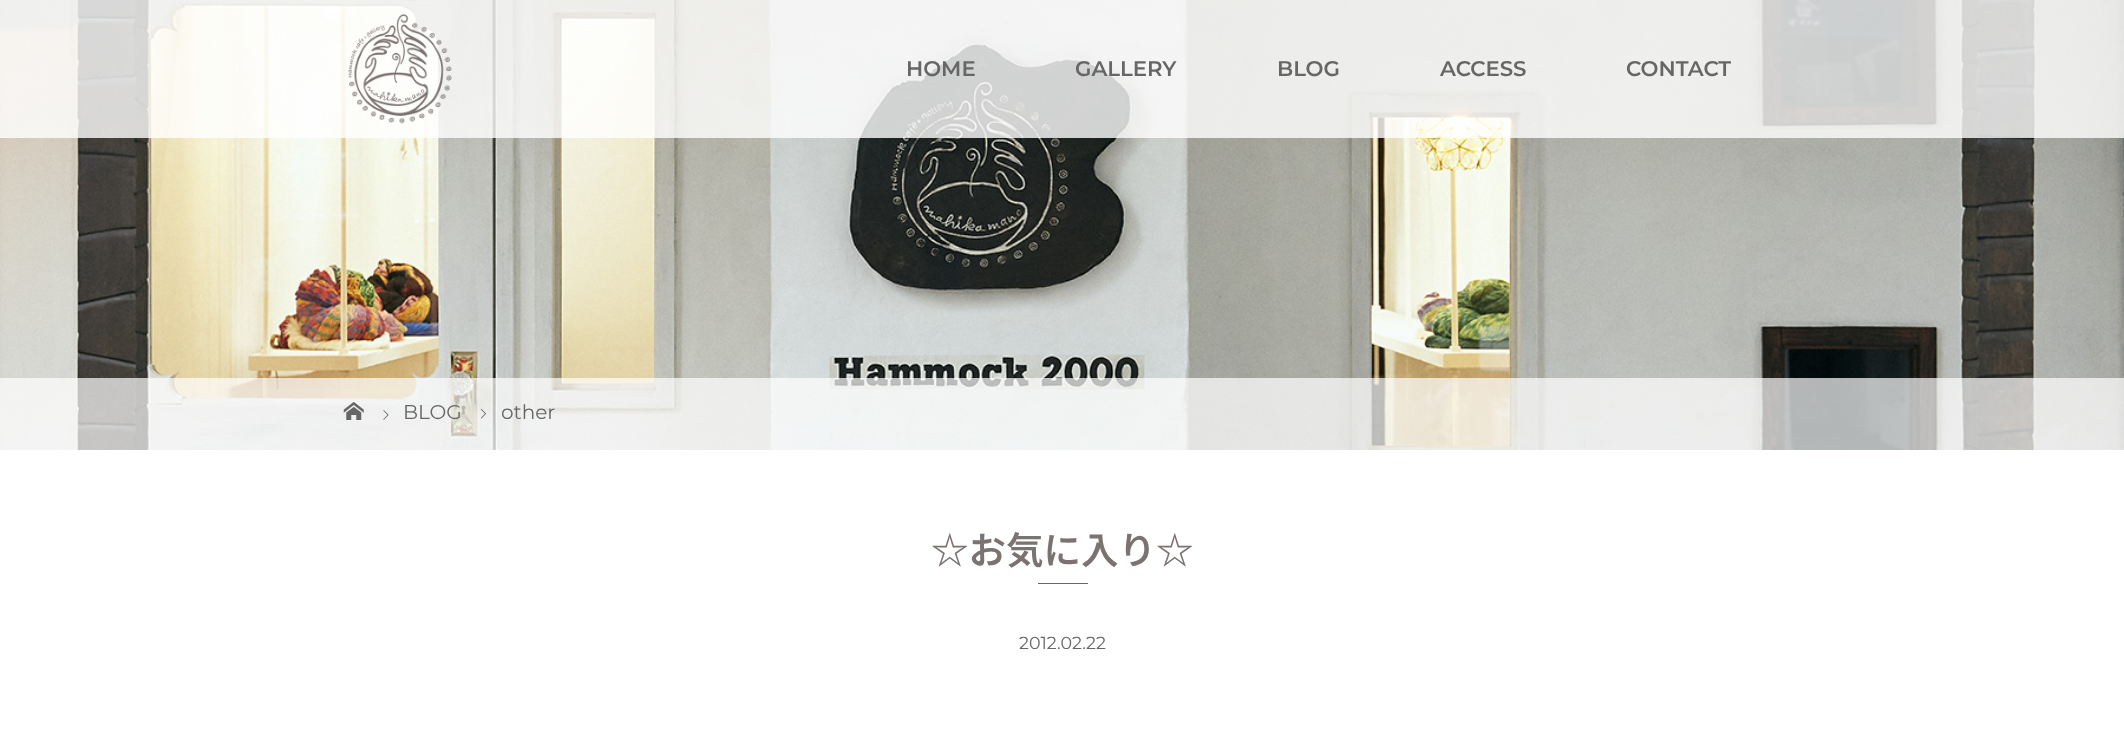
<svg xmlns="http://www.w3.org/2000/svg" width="2124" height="732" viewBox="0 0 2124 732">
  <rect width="100%" height="100%" fill="rgb(255,255,255)"/>
  <image x="0" y="0" width="2124" height="450" href="pic1.png"/>
  <rect x="0" y="0" width="2124" height="138" fill="rgba(255,255,255,0.8)"/>
  <image x="348" y="14" width="104" height="110" href="pic2.png"/>
  <g font-family="Montserrat" font-size="21.25" font-weight="600" fill="rgb(102,102,102)">
    <text x="906" y="76">HOME</text>
    <text x="1075" y="76">GALLERY</text>
    <text x="1277" y="76">BLOG</text>
    <text x="1440" y="76">ACCESS</text>
    <text x="1626" y="76">CONTACT</text>
  </g>
  <rect x="0" y="378" width="2124" height="72" fill="rgba(255,255,255,0.7)"/>
  <image x="343" y="402" width="21" height="18" href="pic3.png"/>
  <image x="383" y="410" width="6" height="10" href="pic4.png"/>
  <text x="403" y="419" font-family="Montserrat" font-size="20" fill="rgb(102,102,102)">BLOG</text>
  <image x="480" y="408" width="6" height="11" href="pic5.png"/>
  <text x="501" y="419" font-family="Montserrat" font-size="20" fill="rgb(102,102,102)">other</text>
  <text x="931" y="564" font-family="Noto Sans JP" font-size="37.5" font-weight="600" fill="rgb(123,114,114)">☆お気に入り☆</text>
  <rect x="1038" y="583" width="50" height="1" fill="rgb(102,102,102)"/>
  <text x="1019" y="649" font-family="Montserrat" font-size="17.5" fill="rgb(102,102,102)">2012.02.22</text>
</svg>
